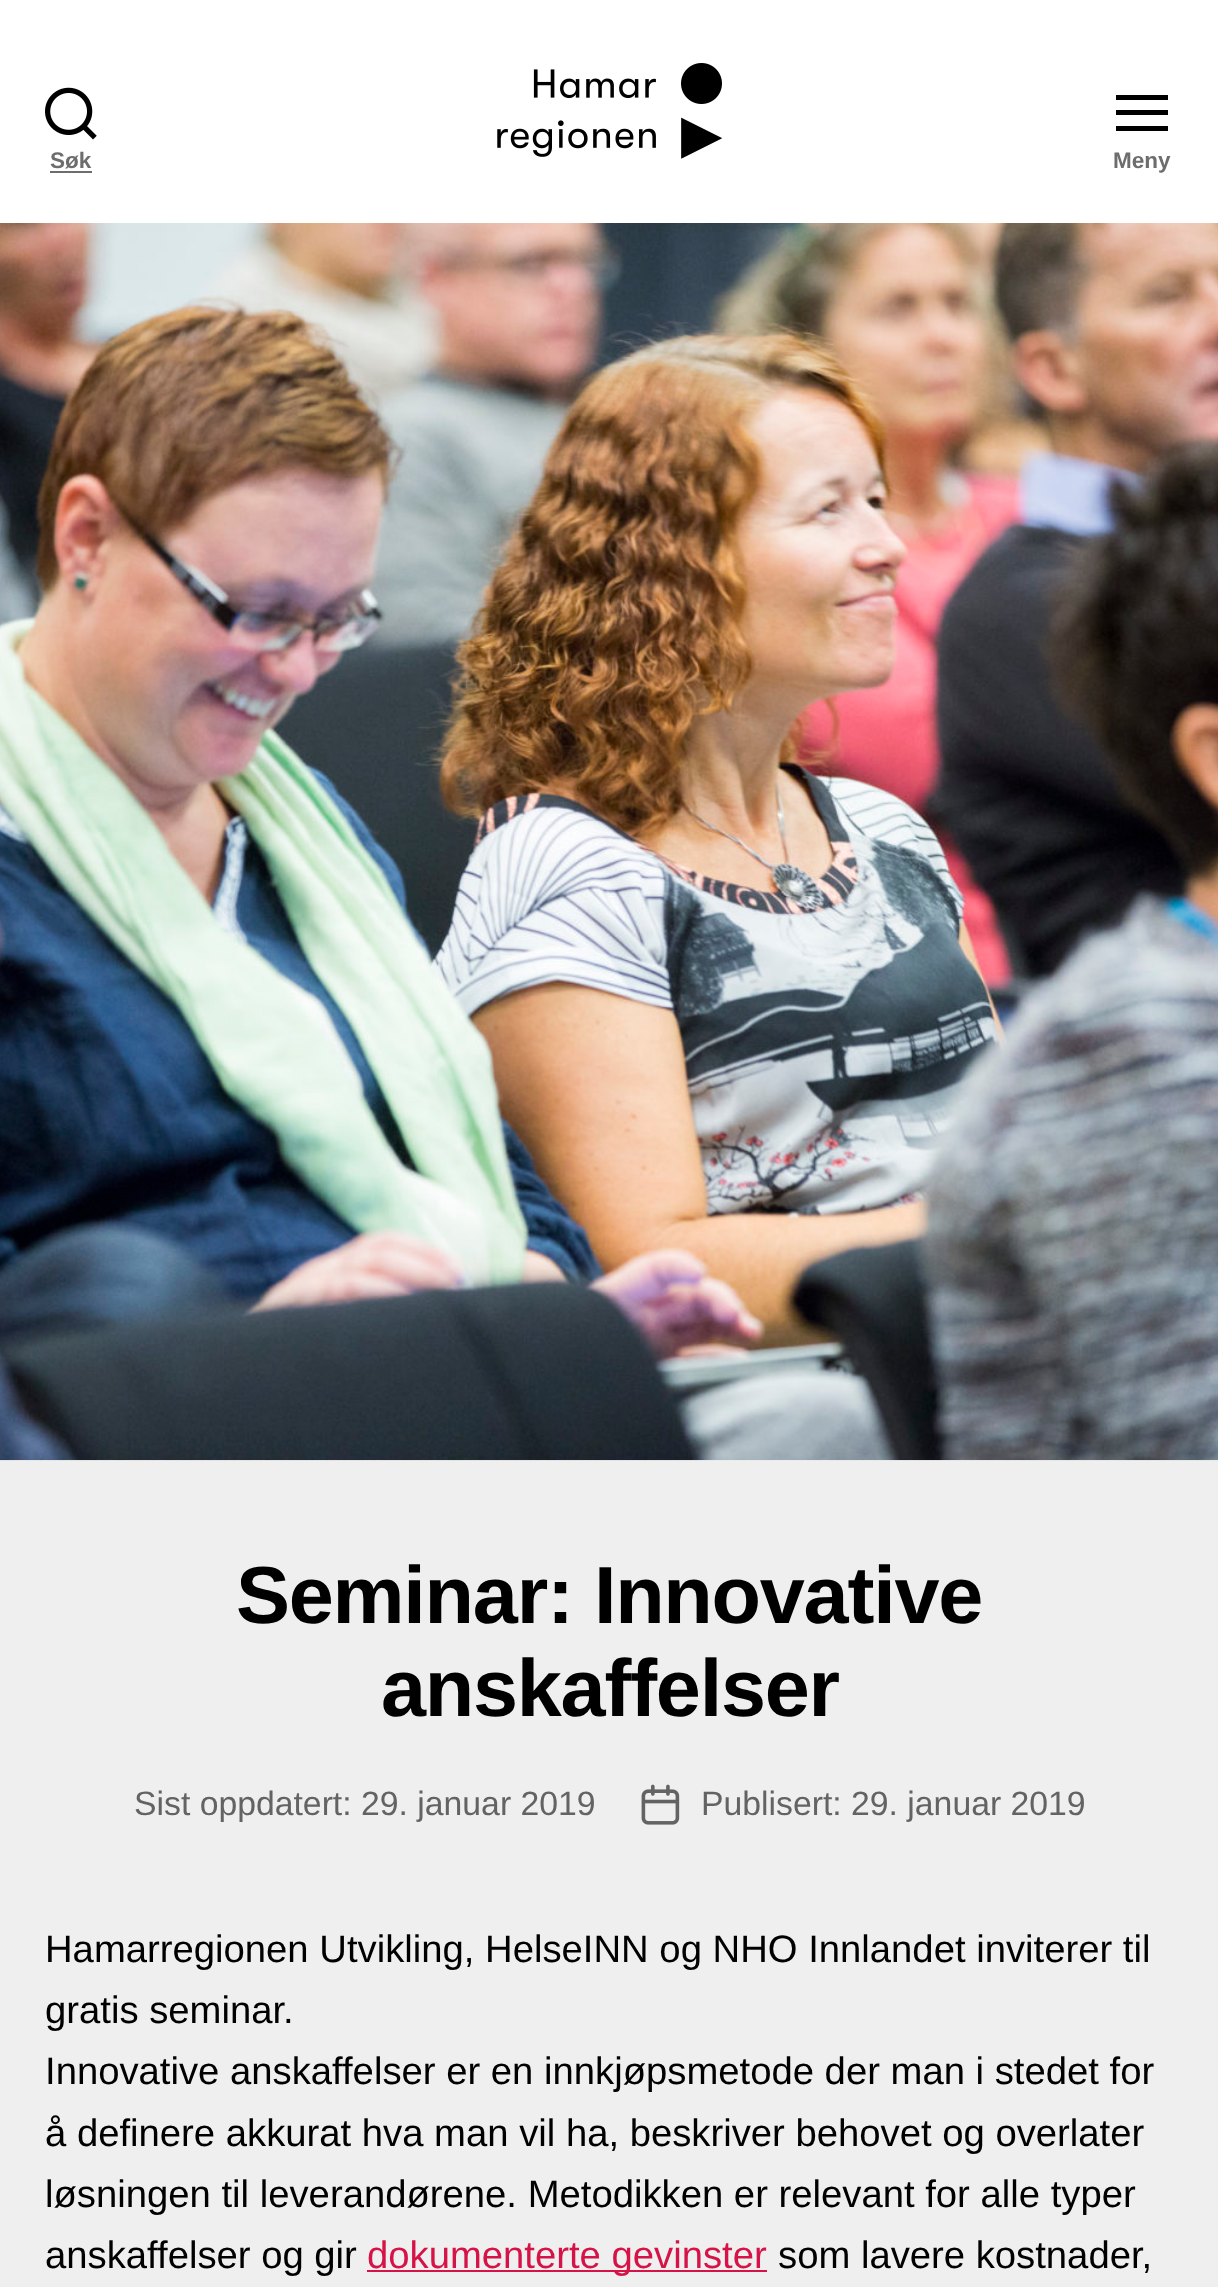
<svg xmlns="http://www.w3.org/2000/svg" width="1218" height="2287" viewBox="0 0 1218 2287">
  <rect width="100%" height="100%" fill="rgb(239,239,239)"/>
  <rect x="0" y="0" width="1218" height="223" fill="rgb(255,255,255)"/>
  <image x="45" y="87" width="52" height="53" href="pic1.png"/>
  <text x="50" y="168" font-family="Liberation Sans" font-size="22.5" font-weight="bold" fill="rgb(109,109,109)">Søk</text>
  <rect x="50" y="171" width="42" height="2" fill="rgb(109,109,109)"/>
  <image x="497" y="63" width="225" height="96" href="pic2.png"/>
  <rect x="1116" y="95" width="52" height="5" fill="rgb(0,0,0)"/>
  <rect x="1116" y="126" width="52" height="5" fill="rgb(0,0,0)"/>
  <rect x="1116" y="110" width="52" height="5" fill="rgb(0,0,0)"/>
  <text x="1113" y="168" font-family="Liberation Sans" font-size="22.5" font-weight="bold" fill="rgb(109,109,109)">Meny</text>
  <image x="0" y="223" width="1218" height="1238" href="pic3.png"/>
  <g font-family="Liberation Sans" font-size="81" font-weight="bold" letter-spacing="-1.25" fill="rgb(0,0,0)">
    <text x="236" y="1623">Seminar: Innovative</text>
    <text x="381" y="1716">anskaffelser</text>
  </g>
  <text x="134" y="1815" font-family="Liberation Sans" font-size="33.75" fill="rgb(99,99,99)">Sist oppdatert: 29. januar 2019</text>
  <image x="641" y="1784" width="39" height="41" href="pic4.png"/>
  <text x="701" y="1815" font-family="Liberation Sans" font-size="33.75" fill="rgb(99,99,99)">Publisert: 29. januar 2019</text>
  <g font-family="Liberation Sans" font-size="38.25" fill="rgb(0,0,0)">
    <text>
      <tspan x="45" y="1962">Hamarregionen Utvikling, HelseINN og NHO Innlandet inviterer til</tspan>
      <tspan x="45" y="2023">gratis seminar.</tspan>
      <tspan x="45" y="2084">Innovative anskaffelser er en innkjøpsmetode der man i stedet for</tspan>
      <tspan x="45" y="2146">å definere akkurat hva man vil ha, beskriver behovet og overlater</tspan>
      <tspan x="45" y="2207">løsningen til leverandørene. Metodikken er relevant for alle typer</tspan>
      <tspan x="45" y="2268">anskaffelser og gir</tspan>
    </text>
  </g>
  <rect x="367" y="2270" width="400" height="2" fill="rgb(214,19,71)"/>
  <text x="367" y="2268" font-family="Liberation Sans" font-size="38.25" fill="rgb(214,19,71)">dokumenterte gevinster</text>
  <text x="778" y="2268" font-family="Liberation Sans" font-size="38.25" fill="rgb(0,0,0)">som lavere kostnader,</text>
</svg>
